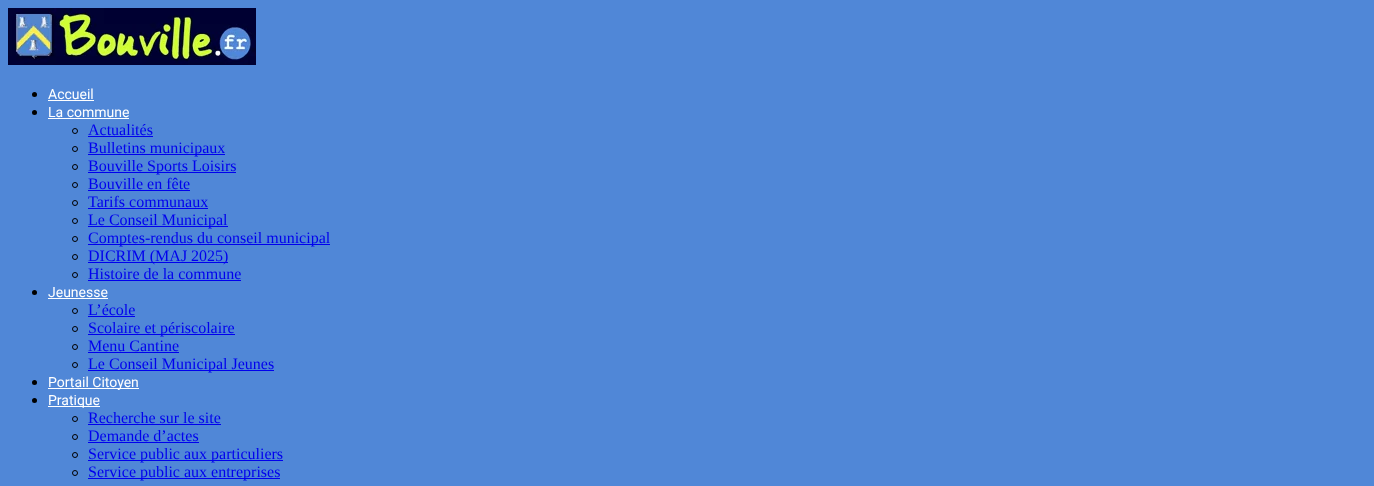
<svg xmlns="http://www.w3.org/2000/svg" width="1374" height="486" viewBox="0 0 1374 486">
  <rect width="100%" height="100%" fill="rgb(80,135,215)"/>
  <image x="8" y="8" width="248" height="57" href="pic1.png"/>
  <circle cx="34.5" cy="94.5" r="2.5" fill="rgb(0,0,0)"/>
  <text x="48" y="99" font-family="Roboto" font-size="14" fill="rgb(255,255,255)">Accueil</text>
  <rect x="48" y="100" width="46" height="1" fill="rgb(255,255,255)"/>
  <circle cx="34.5" cy="112.5" r="2.5" fill="rgb(0,0,0)"/>
  <text x="48" y="117" font-family="Roboto" font-size="14" fill="rgb(255,255,255)">La commune</text>
  <rect x="48" y="118" width="81" height="1" fill="rgb(255,255,255)"/>
  <circle cx="75" cy="131" r="2.5" fill="none" stroke="rgb(0,0,0)"/>
  <text x="88" y="135" font-family="Liberation Serif" font-size="16" fill="rgb(0,0,238)">Actualités</text>
  <rect x="88" y="136" width="65" height="1" fill="rgb(0,0,238)"/>
  <circle cx="75" cy="149" r="2.5" fill="none" stroke="rgb(0,0,0)"/>
  <rect x="88" y="154" width="137" height="1" fill="rgb(0,0,238)"/>
  <text x="88" y="153" font-family="Liberation Serif" font-size="16" fill="rgb(0,0,238)">Bulletins municipaux</text>
  <circle cx="75" cy="167" r="2.5" fill="none" stroke="rgb(0,0,0)"/>
  <rect x="88" y="172" width="148" height="1" fill="rgb(0,0,238)"/>
  <text x="88" y="171" font-family="Liberation Serif" font-size="16" fill="rgb(0,0,238)">Bouville Sports Loisirs</text>
  <circle cx="75" cy="185" r="2.5" fill="none" stroke="rgb(0,0,0)"/>
  <text x="88" y="189" font-family="Liberation Serif" font-size="16" fill="rgb(0,0,238)">Bouville en fête</text>
  <rect x="88" y="190" width="102" height="1" fill="rgb(0,0,238)"/>
  <circle cx="75" cy="203" r="2.5" fill="none" stroke="rgb(0,0,0)"/>
  <text x="88" y="207" font-family="Liberation Serif" font-size="16" fill="rgb(0,0,238)">Tarifs communaux</text>
  <rect x="88" y="208" width="120" height="1" fill="rgb(0,0,238)"/>
  <circle cx="75" cy="221" r="2.5" fill="none" stroke="rgb(0,0,0)"/>
  <rect x="88" y="226" width="140" height="1" fill="rgb(0,0,238)"/>
  <text x="88" y="225" font-family="Liberation Serif" font-size="16" fill="rgb(0,0,238)">Le Conseil Municipal</text>
  <circle cx="75" cy="239" r="2.5" fill="none" stroke="rgb(0,0,0)"/>
  <rect x="88" y="244" width="242" height="1" fill="rgb(0,0,238)"/>
  <text x="88" y="243" font-family="Liberation Serif" font-size="16" fill="rgb(0,0,238)">Comptes-rendus du conseil municipal</text>
  <circle cx="75" cy="257" r="2.5" fill="none" stroke="rgb(0,0,0)"/>
  <rect x="88" y="262" width="140" height="1" fill="rgb(0,0,238)"/>
  <text x="88" y="261" font-family="Liberation Serif" font-size="16" fill="rgb(0,0,238)">DICRIM (MAJ 2025)</text>
  <circle cx="75" cy="275" r="2.5" fill="none" stroke="rgb(0,0,0)"/>
  <text x="88" y="279" font-family="Liberation Serif" font-size="16" fill="rgb(0,0,238)">Histoire de la commune</text>
  <rect x="88" y="280" width="153" height="1" fill="rgb(0,0,238)"/>
  <circle cx="34.5" cy="292.5" r="2.5" fill="rgb(0,0,0)"/>
  <text x="48" y="297" font-family="Roboto" font-size="14" fill="rgb(255,255,255)">Jeunesse</text>
  <rect x="48" y="298" width="60" height="1" fill="rgb(255,255,255)"/>
  <circle cx="75" cy="311" r="2.5" fill="none" stroke="rgb(0,0,0)"/>
  <text x="88" y="315" font-family="Liberation Serif" font-size="16" fill="rgb(0,0,238)">L’école</text>
  <rect x="88" y="316" width="47" height="1" fill="rgb(0,0,238)"/>
  <circle cx="75" cy="329" r="2.5" fill="none" stroke="rgb(0,0,0)"/>
  <rect x="88" y="334" width="147" height="1" fill="rgb(0,0,238)"/>
  <text x="88" y="333" font-family="Liberation Serif" font-size="16" fill="rgb(0,0,238)">Scolaire et périscolaire</text>
  <circle cx="75" cy="347" r="2.5" fill="none" stroke="rgb(0,0,0)"/>
  <text x="88" y="351" font-family="Liberation Serif" font-size="16" fill="rgb(0,0,238)">Menu Cantine</text>
  <rect x="88" y="352" width="91" height="1" fill="rgb(0,0,238)"/>
  <circle cx="75" cy="365" r="2.5" fill="none" stroke="rgb(0,0,0)"/>
  <rect x="88" y="370" width="186" height="1" fill="rgb(0,0,238)"/>
  <text x="88" y="369" font-family="Liberation Serif" font-size="16" fill="rgb(0,0,238)">Le Conseil Municipal Jeunes</text>
  <circle cx="34.5" cy="382.5" r="2.5" fill="rgb(0,0,0)"/>
  <rect x="48" y="388" width="91" height="1" fill="rgb(255,255,255)"/>
  <text x="48" y="387" font-family="Roboto" font-size="14" fill="rgb(255,255,255)">Portail Citoyen</text>
  <circle cx="34.5" cy="400.5" r="2.5" fill="rgb(0,0,0)"/>
  <rect x="48" y="406" width="52" height="1" fill="rgb(255,255,255)"/>
  <text x="48" y="405" font-family="Roboto" font-size="14" fill="rgb(255,255,255)">Pratique</text>
  <circle cx="75" cy="419" r="2.5" fill="none" stroke="rgb(0,0,0)"/>
  <text x="88" y="423" font-family="Liberation Serif" font-size="16" fill="rgb(0,0,238)">Recherche sur le site</text>
  <rect x="88" y="424" width="133" height="1" fill="rgb(0,0,238)"/>
  <circle cx="75" cy="437" r="2.5" fill="none" stroke="rgb(0,0,0)"/>
  <text x="88" y="441" font-family="Liberation Serif" font-size="16" fill="rgb(0,0,238)">Demande d’actes</text>
  <rect x="88" y="442" width="111" height="1" fill="rgb(0,0,238)"/>
  <circle cx="75" cy="455" r="2.5" fill="none" stroke="rgb(0,0,0)"/>
  <rect x="88" y="460" width="195" height="1" fill="rgb(0,0,238)"/>
  <text x="88" y="459" font-family="Liberation Serif" font-size="16" fill="rgb(0,0,238)">Service public aux particuliers</text>
  <circle cx="75" cy="473" r="2.5" fill="none" stroke="rgb(0,0,0)"/>
  <rect x="88" y="478" width="192" height="1" fill="rgb(0,0,238)"/>
  <text x="88" y="477" font-family="Liberation Serif" font-size="16" fill="rgb(0,0,238)">Service public aux entreprises</text>
</svg>
